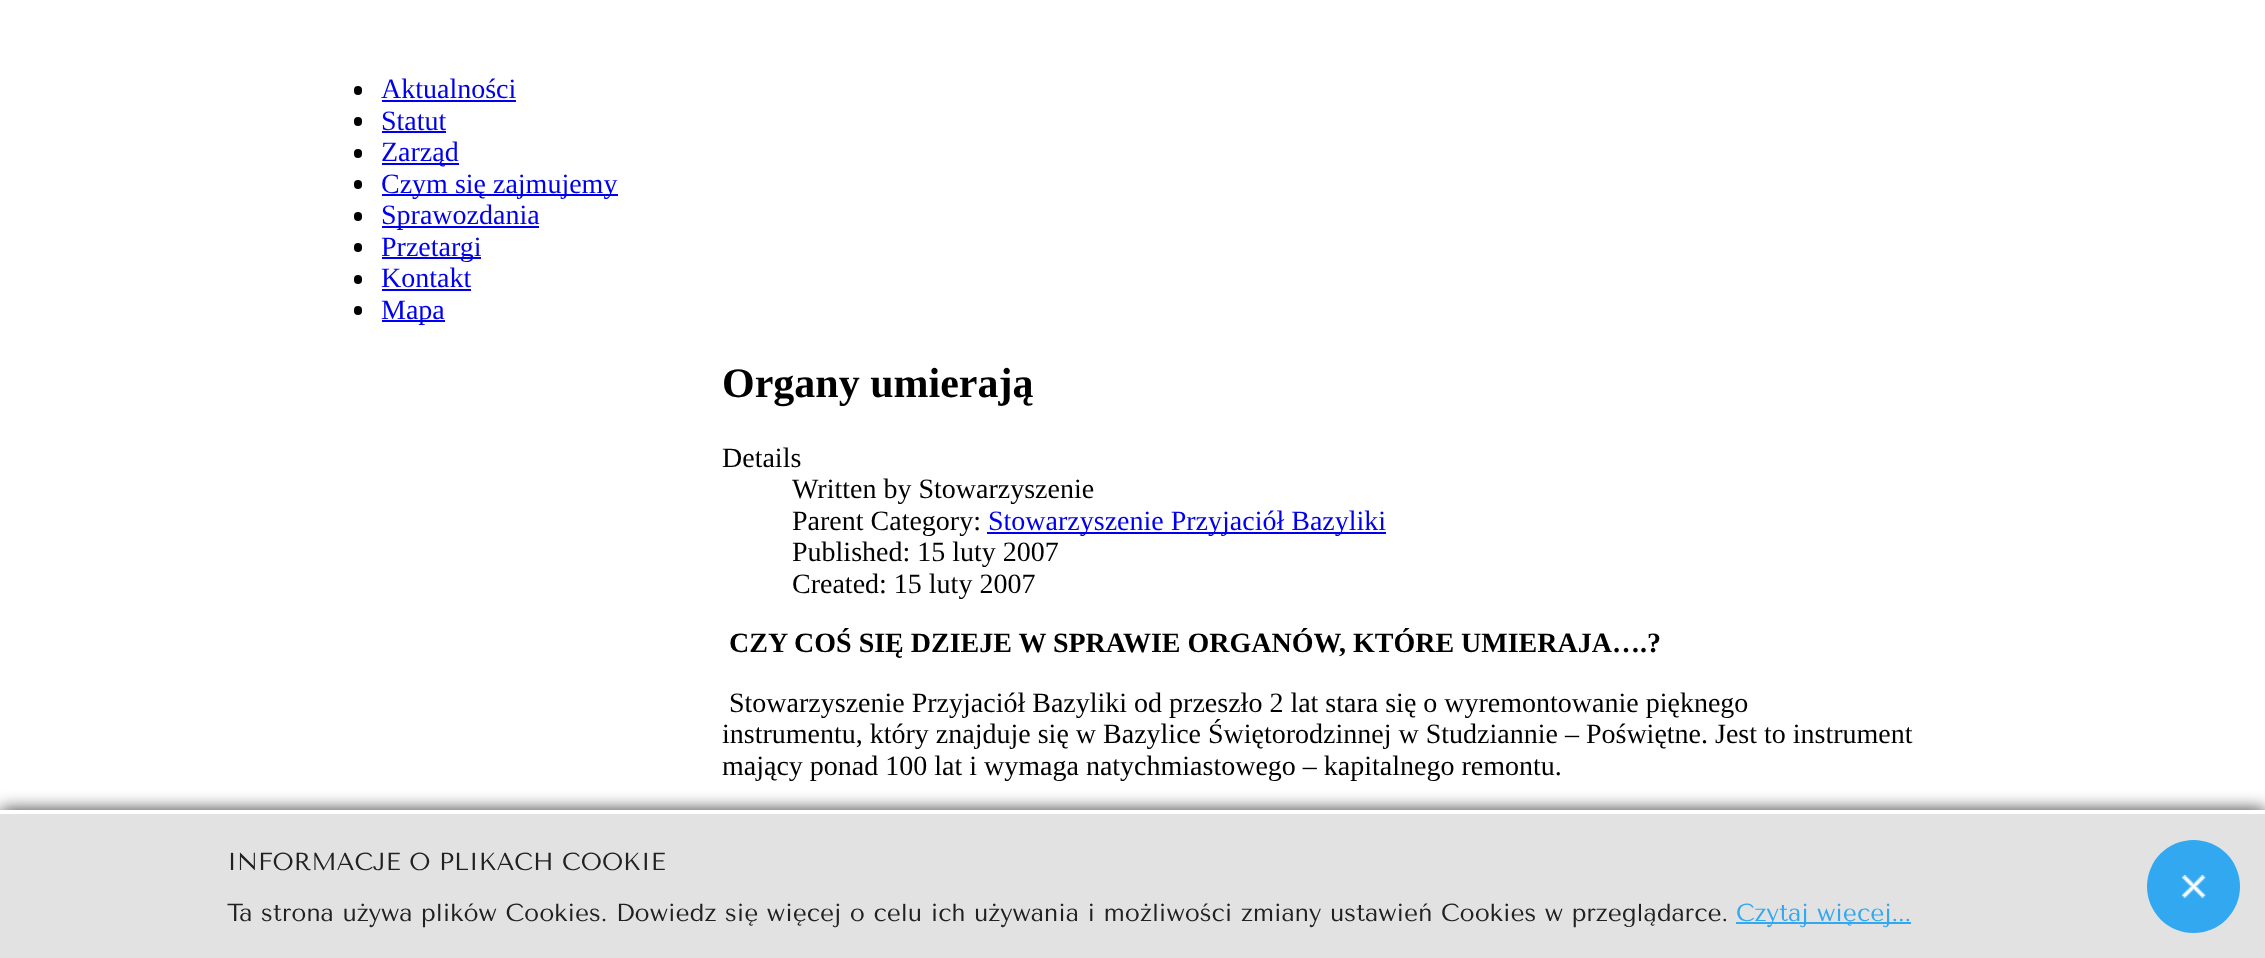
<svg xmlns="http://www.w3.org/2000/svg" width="2265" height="958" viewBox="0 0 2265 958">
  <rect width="100%" height="100%" fill="rgb(255,255,255)"/>
  <rect x="354" y="86" width="8" height="9" rx="4" fill="rgb(0,0,0)"/>
  <text x="381" y="98" font-family="Liberation Serif" font-size="28" fill="rgb(0,0,238)">Aktualności</text>
  <rect x="382" y="100" width="134" height="2" fill="rgb(0,0,238)"/>
  <rect x="354" y="117" width="8" height="9" rx="4" fill="rgb(0,0,0)"/>
  <text x="381" y="130" font-family="Liberation Serif" font-size="28" fill="rgb(0,0,238)">Statut</text>
  <rect x="382" y="131" width="64" height="2" fill="rgb(0,0,238)"/>
  <rect x="354" y="149" width="8" height="9" rx="4" fill="rgb(0,0,0)"/>
  <rect x="382" y="163" width="77" height="2" fill="rgb(0,0,238)"/>
  <text x="381" y="161" font-family="Liberation Serif" font-size="28" fill="rgb(0,0,238)">Zarząd</text>
  <rect x="354" y="180" width="8" height="9" rx="4" fill="rgb(0,0,0)"/>
  <rect x="382" y="194" width="236" height="2" fill="rgb(0,0,238)"/>
  <text x="381" y="193" font-family="Liberation Serif" font-size="28" fill="rgb(0,0,238)">Czym się zajmujemy</text>
  <rect x="354" y="212" width="8" height="9" rx="4" fill="rgb(0,0,0)"/>
  <rect x="382" y="226" width="157" height="2" fill="rgb(0,0,238)"/>
  <text x="381" y="224" font-family="Liberation Serif" font-size="28" fill="rgb(0,0,238)">Sprawozdania</text>
  <rect x="354" y="243" width="8" height="9" rx="4" fill="rgb(0,0,0)"/>
  <rect x="382" y="257" width="99" height="2" fill="rgb(0,0,238)"/>
  <text x="381" y="256" font-family="Liberation Serif" font-size="28" fill="rgb(0,0,238)">Przetargi</text>
  <rect x="354" y="275" width="8" height="9" rx="4" fill="rgb(0,0,0)"/>
  <text x="381" y="287" font-family="Liberation Serif" font-size="28" fill="rgb(0,0,238)">Kontakt</text>
  <rect x="382" y="289" width="89" height="2" fill="rgb(0,0,238)"/>
  <rect x="354" y="306" width="8" height="9" rx="4" fill="rgb(0,0,0)"/>
  <rect x="382" y="320" width="63" height="2" fill="rgb(0,0,238)"/>
  <text x="381" y="319" font-family="Liberation Serif" font-size="28" fill="rgb(0,0,238)">Mapa</text>
  <text x="722" y="397" font-family="Liberation Serif" font-size="42" font-weight="bold" fill="rgb(0,0,0)">Organy umierają</text>
  <g font-family="Liberation Serif" font-size="28" fill="rgb(0,0,0)">
    <text x="722" y="467">Details</text>
    <text>
      <tspan x="792" y="498">Written by Stowarzyszenie</tspan>
      <tspan x="792" y="530">Parent Category:</tspan>
    </text>
  </g>
  <rect x="987" y="532" width="399" height="2" fill="rgb(0,0,238)"/>
  <text x="988" y="530" font-family="Liberation Serif" font-size="28" fill="rgb(0,0,238)">Stowarzyszenie Przyjaciół Bazyliki</text>
  <g font-family="Liberation Serif" font-size="28" fill="rgb(0,0,0)">
    <text>
      <tspan x="792" y="561">Published: 15 luty 2007</tspan>
      <tspan x="792" y="593">Created: 15 luty 2007</tspan>
    </text>
  </g>
  <text x="729" y="652" font-family="Liberation Serif" font-size="28" font-weight="bold" fill="rgb(0,0,0)">CZY COŚ SIĘ DZIEJE W SPRAWIE ORGANÓW, KTÓRE UMIERAJA….?</text>
  <g font-family="Liberation Serif" font-size="28" fill="rgb(0,0,0)">
    <text x="729" y="712">Stowarzyszenie Przyjaciół Bazyliki od przeszło 2 lat stara się o wyremontowanie pięknego</text>
    <text>
      <tspan x="722" y="743">instrumentu, który znajduje się w Bazylice Świętorodzinnej w Studziannie – Poświętne. Jest to instrument</tspan>
      <tspan x="722" y="775">mający ponad 100 lat i wymaga natychmiastowego – kapitalnego remontu.</tspan>
    </text>
  </g>
  <rect x="0" y="810" width="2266" height="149" fill="rgba(0,0,0,0.8)" filter="blur(9px)"/>
  <rect x="0" y="814" width="2265" height="144" fill="rgb(226,226,226)"/>
  <rect x="0" y="810" width="2265" height="4" fill="rgb(255,255,255)"/>
  <g font-family="Tenor Sans" font-size="24.5" fill="rgb(33,33,33)">
    <text x="227" y="870">INFORMACJE O PLIKACH COOKIE</text>
    <text x="227" y="921">Ta strona używa plików Cookies. Dowiedz się więcej o celu ich używania i możliwości zmiany ustawień Cookies w przeglądarce.</text>
  </g>
  <rect x="1736" y="922" width="175" height="2" fill="rgb(49,168,240)"/>
  <text x="1736" y="921" font-family="Tenor Sans" font-size="24.5" fill="rgb(49,168,240)">Czytaj więcej...</text>
  <circle cx="2193.5" cy="886.5" r="46.5" fill="rgb(49,168,240)"/>
  <image x="2182" y="875" width="24" height="23" href="pic1.png"/>
</svg>
